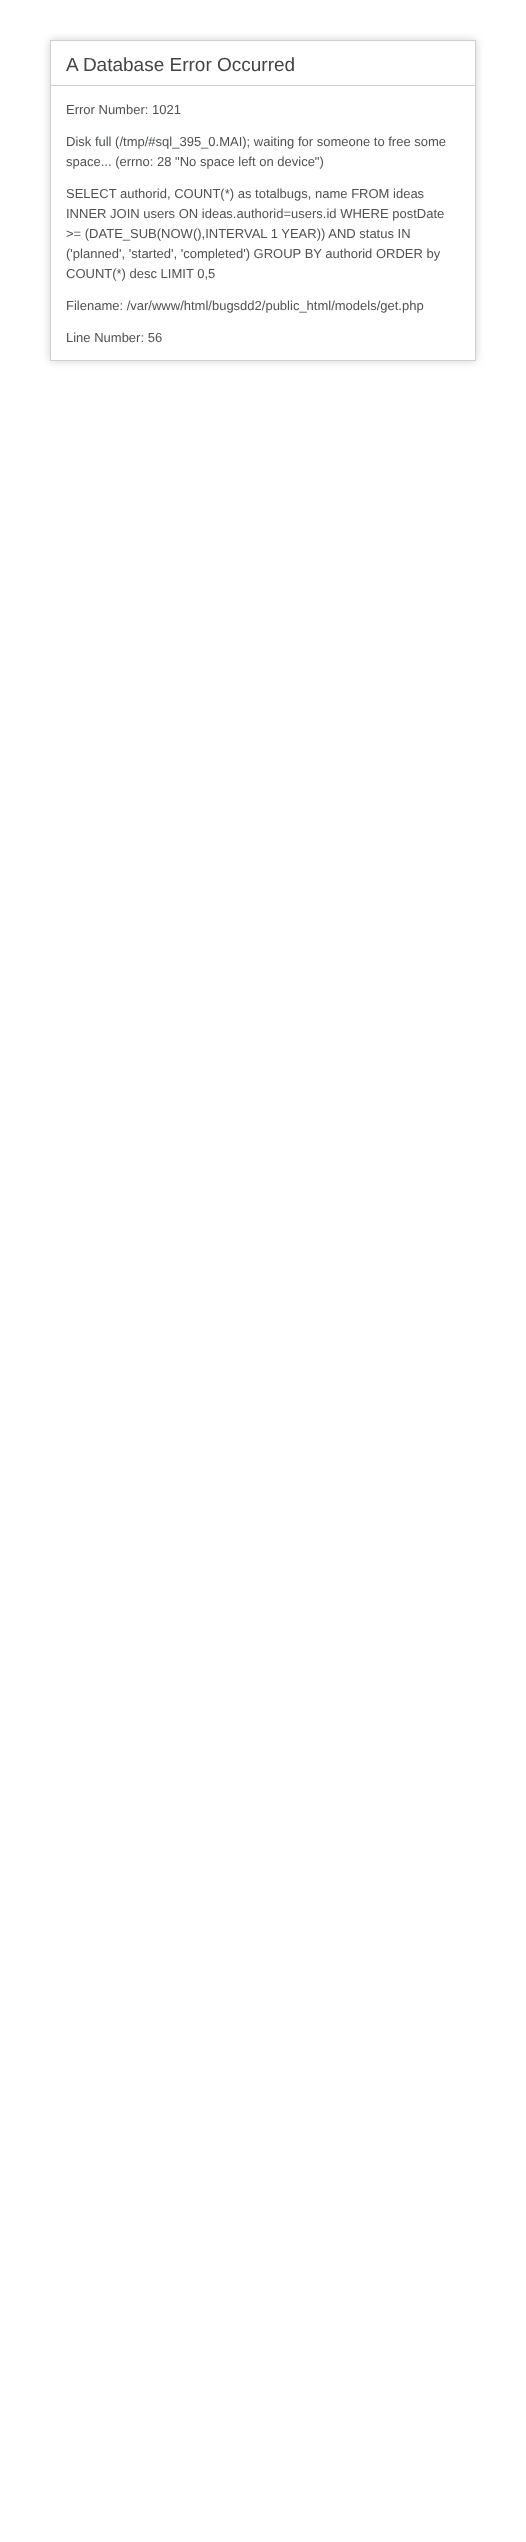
<svg xmlns="http://www.w3.org/2000/svg" width="526" height="2542" viewBox="0 0 526 2542">
  <defs>
    <clipPath id="clip1"><path d="M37 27H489V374H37ZM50 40H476V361H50Z" clip-rule="evenodd"/></clipPath>
  </defs>
  <rect width="100%" height="100%" fill="rgb(255,255,255)"/>
  <g clip-path="url(#clip1)">
    <rect x="50" y="40" width="426" height="321" fill="rgb(208,208,208)" filter="blur(4px)"/>
  </g>
  <rect x="50.5" y="40.5" width="425" height="320" fill="none" stroke="rgb(208,208,208)"/>
  <rect x="51" y="85" width="424" height="1" fill="rgb(208,208,208)"/>
  <text x="66" y="71" font-family="Liberation Sans" font-size="19" fill="rgb(68,68,68)">A Database Error Occurred</text>
  <g font-family="Liberation Sans" font-size="13" fill="rgb(79,81,85)">
    <text x="66" y="114">Error Number: 1021</text>
    <text>
      <tspan x="66" y="146">Disk full (/tmp/#sql_395_0.MAI); waiting for someone to free some</tspan>
      <tspan x="66" y="166">space... (errno: 28 "No space left on device")</tspan>
    </text>
    <text>
      <tspan x="66" y="198">SELECT authorid, COUNT(*) as totalbugs, name FROM ideas</tspan>
      <tspan x="66" y="218">INNER JOIN users ON ideas.authorid=users.id WHERE postDate</tspan>
      <tspan x="66" y="238">&gt;= (DATE_SUB(NOW(),INTERVAL 1 YEAR)) AND status IN</tspan>
      <tspan x="66" y="258">('planned', 'started', 'completed') GROUP BY authorid ORDER by</tspan>
      <tspan x="66" y="278">COUNT(*) desc LIMIT 0,5</tspan>
    </text>
    <text x="66" y="310">Filename: /var/www/html/bugsdd2/public_html/models/get.php</text>
    <text x="66" y="342">Line Number: 56</text>
  </g>
</svg>
